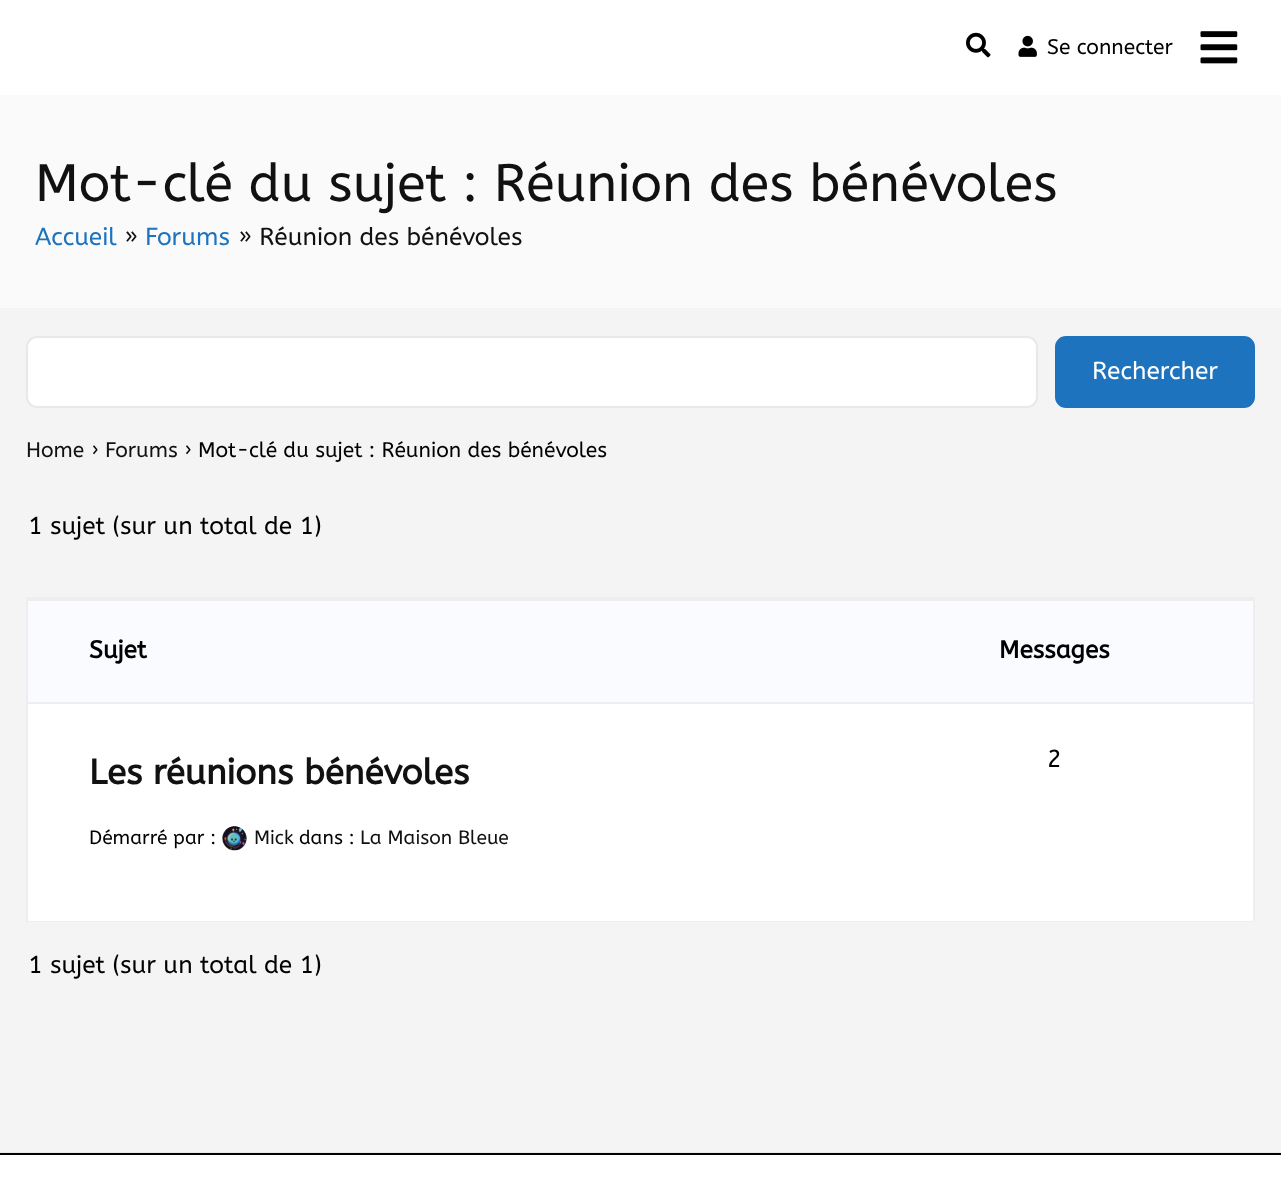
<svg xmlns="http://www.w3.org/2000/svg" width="1281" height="1181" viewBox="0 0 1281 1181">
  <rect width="100%" height="100%" fill="rgb(244,244,244)"/>
  <rect x="0" y="0" width="1281" height="95" fill="rgb(255,255,255)"/>
  <image x="966" y="32" width="25" height="26" href="pic1.png"/>
  <image x="1018" y="35" width="19" height="22" href="pic2.png"/>
  <text x="1047" y="54" font-family="ABeeZee" font-size="21" fill="rgb(0,0,0)">Se connecter</text>
  <image x="1200" y="31" width="38" height="33" href="pic3.png"/>
  <rect x="0" y="95" width="1281" height="213" fill="rgb(250,250,250)"/>
  <text x="35" y="201" font-family="ABeeZee" font-size="52.5" fill="rgb(17,17,17)">Mot-clé du sujet : Réunion des bénévoles</text>
  <text x="35" y="245" font-family="ABeeZee" font-size="24.5" fill="rgb(30,115,190)">Accueil</text>
  <text x="124" y="245" font-family="ABeeZee" font-size="24.5" fill="rgb(17,17,17)">»</text>
  <text x="145" y="245" font-family="ABeeZee" font-size="24.5" fill="rgb(30,115,190)">Forums</text>
  <text x="238" y="245" font-family="ABeeZee" font-size="24.5" fill="rgb(17,17,17)">» Réunion des bénévoles</text>
  <rect x="27" y="337" width="1010" height="70" rx="10" fill="rgb(255,255,255)" stroke="rgb(232,232,232)" stroke-width="2"/>
  <rect x="1056" y="337" width="198" height="70" rx="10" fill="rgb(30,115,190)" stroke="rgb(30,115,190)" stroke-width="2"/>
  <text x="1092" y="379" font-family="ABeeZee" font-size="24.5" fill="rgb(255,255,255)">Rechercher</text>
  <text x="26" y="457" font-family="ABeeZee" font-size="21" fill="rgb(17,17,17)">Home</text>
  <text x="91" y="457" font-family="ABeeZee" font-size="21" fill="rgb(0,0,0)">›</text>
  <text x="105" y="457" font-family="ABeeZee" font-size="21" fill="rgb(17,17,17)">Forums</text>
  <text x="184" y="457" font-family="ABeeZee" font-size="21" fill="rgb(0,0,0)">› Mot-clé du sujet : Réunion des bénévoles</text>
  <text x="28" y="534" font-family="ABeeZee" font-size="24.5" fill="rgb(0,0,0)">1 sujet (sur un total de 1)</text>
  <rect x="27" y="598" width="1227" height="323" fill="none" stroke="rgb(238,238,238)" stroke-width="2"/>
  <rect x="28" y="601" width="1225" height="101" fill="rgb(249,251,255)"/>
  <rect x="28" y="599" width="1225" height="2" fill="rgb(238,238,238)"/>
  <g font-family="ABeeZee" font-size="24.5" font-weight="bold" fill="rgb(0,0,0)">
    <text x="89" y="658">Sujet</text>
    <text x="999" y="658">Messages</text>
  </g>
  <rect x="28" y="704" width="1225" height="217" fill="rgb(255,255,255)"/>
  <rect x="28" y="702" width="1225" height="2" fill="rgb(238,238,238)"/>
  <text x="89" y="784" font-family="ABeeZee" font-size="35" font-weight="bold" fill="rgb(17,17,17)">Les réunions bénévoles</text>
  <text x="89" y="844" font-family="ABeeZee" font-size="19.25" fill="rgb(0,0,0)">Démarré par :</text>
  <image x="222" y="826" width="25" height="25" href="pic4.png"/>
  <text x="254" y="844" font-family="ABeeZee" font-size="19.25" fill="rgb(17,17,17)">Mick</text>
  <text x="299" y="844" font-family="ABeeZee" font-size="19.25" fill="rgb(0,0,0)">dans :</text>
  <text x="360" y="844" font-family="ABeeZee" font-size="19.25" fill="rgb(17,17,17)">La Maison Bleue</text>
  <g font-family="ABeeZee" font-size="24.5" fill="rgb(0,0,0)">
    <text x="1047" y="767">2</text>
    <text x="28" y="973">1 sujet (sur un total de 1)</text>
  </g>
  <rect x="0" y="1152" width="1281" height="1" fill="rgb(232,232,232)"/>
  <rect x="0" y="1155" width="1281" height="26" fill="rgb(255,255,255)"/>
  <rect x="0" y="1153" width="1281" height="2" fill="rgb(0,0,0)"/>
</svg>
